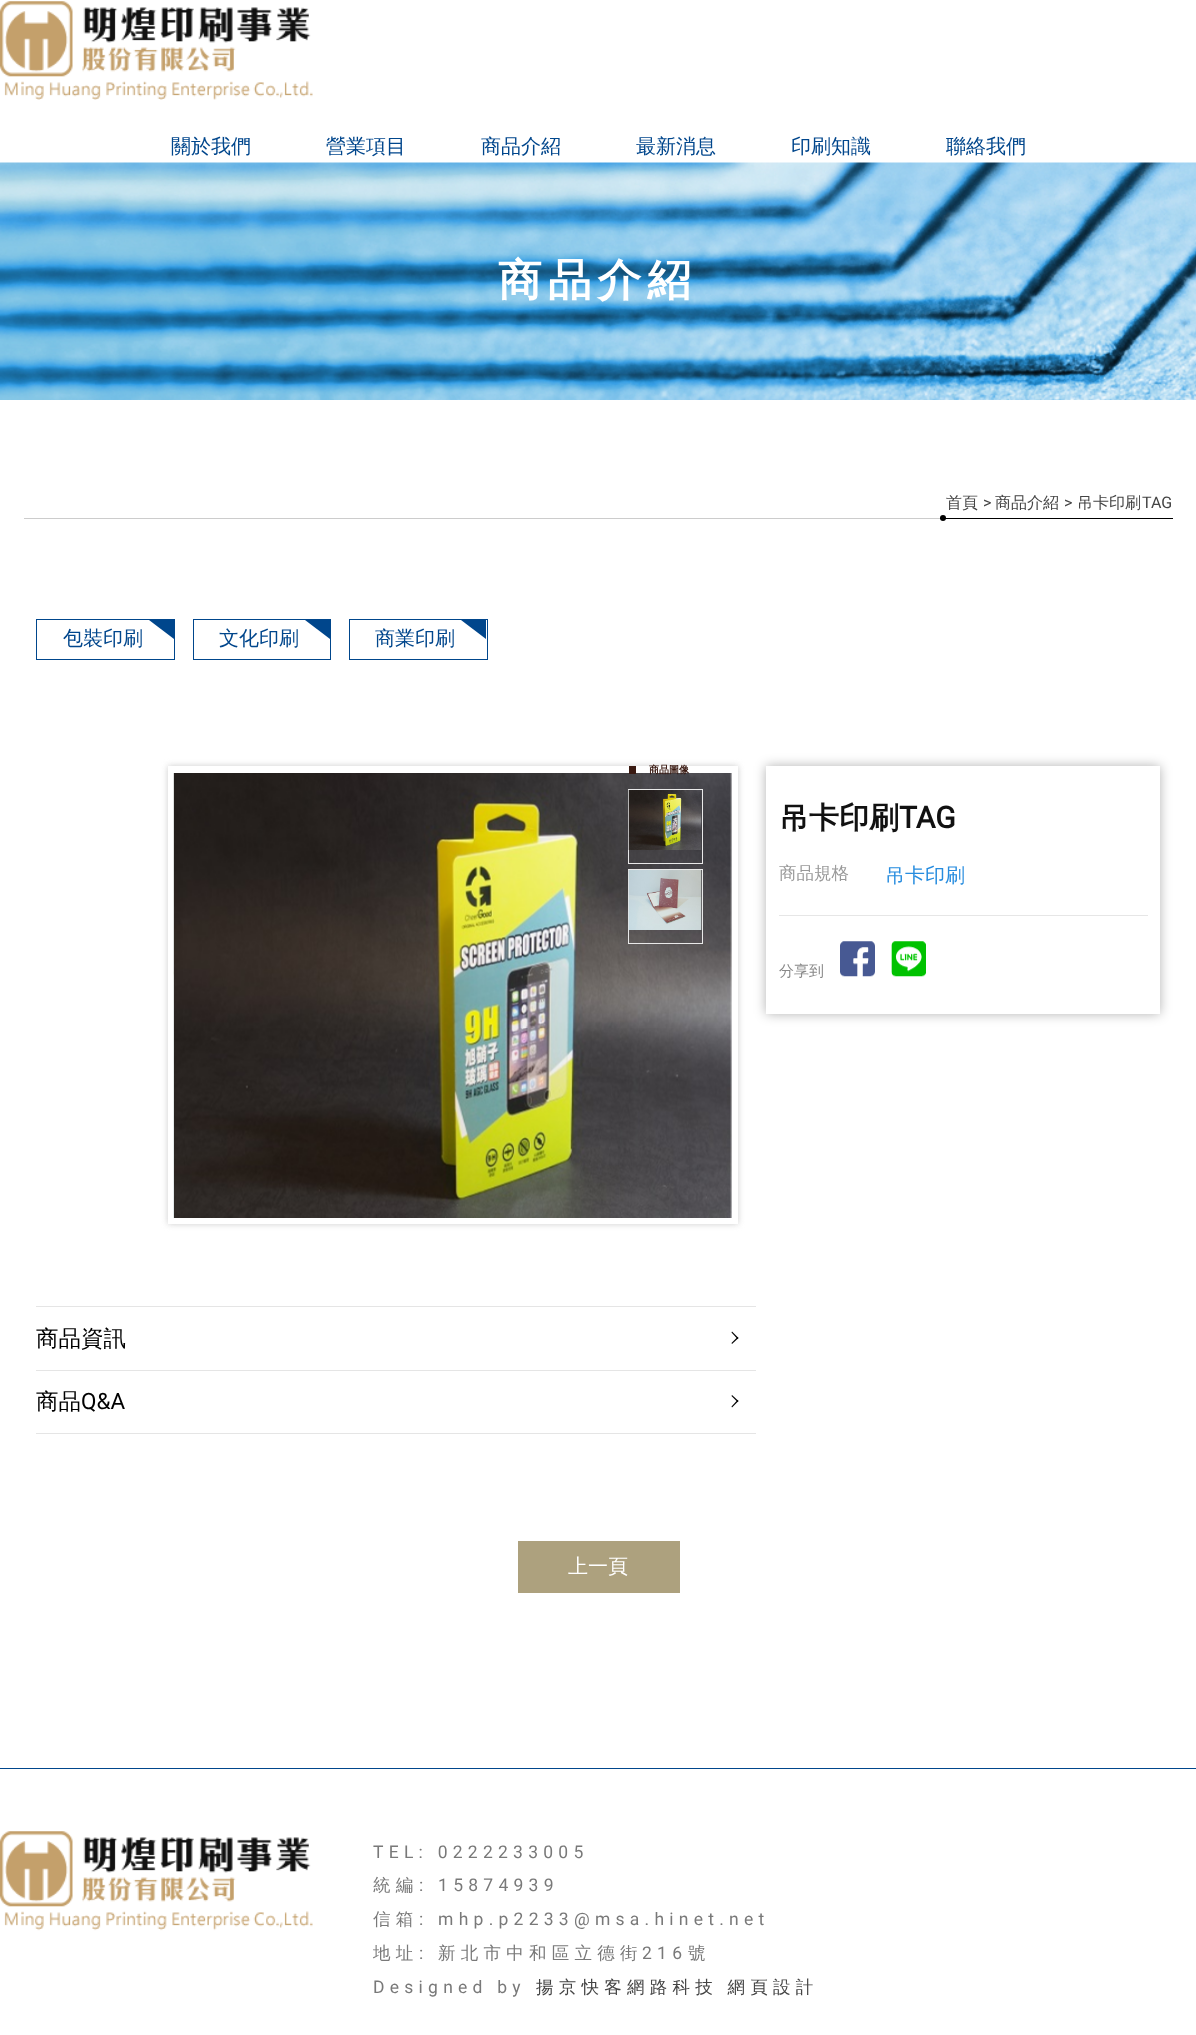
<svg xmlns="http://www.w3.org/2000/svg" width="1196" height="2035" viewBox="0 0 1196 2035">
  <defs>
    <clipPath id="clip1"><path d="M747 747H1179V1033H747ZM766 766H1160V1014H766Z" clip-rule="evenodd"/></clipPath>
  </defs>
  <rect width="100%" height="100%" fill="rgb(255,255,255)"/>
  <image x="0" y="1" width="313" height="99" href="pic1.png"/>
  <g font-family="WenQuanYi Zen Hei" font-size="20" font-weight="500" fill="rgb(0,70,140)">
    <text x="171" y="153">關於我們</text>
    <text x="326" y="153">營業項目</text>
    <text x="481" y="153">商品介紹</text>
    <text x="636" y="153">最新消息</text>
    <text x="791" y="153">印刷知識</text>
    <text x="946" y="153">聯絡我們</text>
  </g>
  <image x="0" y="162" width="1196" height="238" href="pic2.png"/>
  <text x="498" y="295" font-family="WenQuanYi Zen Hei" font-size="43.75" font-weight="bold" letter-spacing="6" fill="rgb(255,255,255)">商品介紹</text>
  <rect x="24" y="518" width="916" height="1" fill="rgb(204,204,204)"/>
  <rect x="940" y="518" width="233" height="1" fill="rgb(0,0,0)"/>
  <text x="946" y="508" font-family="WenQuanYi Zen Hei" font-size="16" font-weight="500" fill="rgb(68,68,68)">首頁</text>
  <text x="983" y="508" font-family="Roboto" font-size="16" fill="rgb(68,68,68)">&gt;</text>
  <text x="995" y="508" font-family="WenQuanYi Zen Hei" font-size="16" font-weight="500" fill="rgb(68,68,68)">商品介紹</text>
  <text x="1064" y="508" font-family="Roboto" font-size="16" fill="rgb(68,68,68)">&gt;</text>
  <text x="1077" y="508" font-family="WenQuanYi Zen Hei" font-size="16" font-weight="500" fill="rgb(68,68,68)">吊卡印刷</text>
  <text x="1142" y="508" font-family="Roboto" font-size="16" fill="rgb(68,68,68)">TAG</text>
  <circle cx="943" cy="518" r="3" fill="rgb(0,0,0)"/>
  <rect x="36.5" y="619.5" width="138" height="40" fill="none" stroke="rgb(0,70,140)"/>
  <text x="63" y="645" font-family="WenQuanYi Zen Hei" font-size="20" font-weight="500" fill="rgb(0,70,140)">包裝印刷</text>
  <path d="M174 620V639L149 620Z" fill="rgb(0,70,140)"/>
  <rect x="193.5" y="619.5" width="137" height="40" fill="none" stroke="rgb(0,70,140)"/>
  <text x="219" y="645" font-family="WenQuanYi Zen Hei" font-size="20" font-weight="500" fill="rgb(0,70,140)">文化印刷</text>
  <path d="M330 620V639L305 620Z" fill="rgb(0,70,140)"/>
  <rect x="349.5" y="619.5" width="138" height="40" fill="none" stroke="rgb(0,70,140)"/>
  <text x="375" y="645" font-family="WenQuanYi Zen Hei" font-size="20" font-weight="500" fill="rgb(0,70,140)">商業印刷</text>
  <path d="M486 620V639L461 620Z" fill="rgb(0,70,140)"/>
  <rect x="168" y="766" width="570" height="458" fill="rgb(204,204,204)" filter="blur(3px)"/>
  <rect x="168" y="766" width="570" height="458" fill="rgb(255,255,255)"/>
  <image x="173" y="773" width="1" height="445" href="pic3.png"/>
  <image x="174" y="773" width="558" height="445" href="pic4.png"/>
  <rect x="629" y="766" width="7" height="8" fill="rgb(57,25,17)"/>
  <text x="649" y="773" font-family="WenQuanYi Zen Hei" font-size="10" font-weight="bold" fill="rgb(57,25,17)">商品圖像</text>
  <rect x="628.5" y="789.5" width="74" height="74" fill="none" stroke="rgb(233,233,233)"/>
  <image x="628" y="790" width="74" height="60" href="pic5.png"/>
  <rect x="628.5" y="869.5" width="74" height="74" fill="none" stroke="rgb(233,233,233)"/>
  <image x="628" y="870" width="74" height="60" href="pic6.png"/>
  <rect x="36" y="1306" width="720" height="1" fill="rgb(229,229,229)"/>
  <rect x="36" y="1370" width="720" height="1" fill="rgb(229,229,229)"/>
  <text x="36" y="1346" font-family="WenQuanYi Zen Hei" font-size="22.5" font-weight="500" fill="rgb(0,0,0)">商品資訊</text>
  <path d="M731.5 1332.5L732 1331.5L738.5 1338L737.5 1339Z" fill="rgb(0,0,0)"/>
  <path d="M731.5 1343L737.5 1337L738.5 1338L732 1344Z" fill="rgb(0,0,0)"/>
  <rect x="36" y="1433" width="720" height="1" fill="rgb(229,229,229)"/>
  <text x="36" y="1409" font-family="WenQuanYi Zen Hei" font-size="22.5" font-weight="500" fill="rgb(0,0,0)">商品</text>
  <text x="81" y="1409" font-family="Roboto" font-size="22.5" fill="rgb(0,0,0)">Q&amp;A</text>
  <path d="M731.5 1396L732 1395L738.5 1401L737.5 1402Z" fill="rgb(0,0,0)"/>
  <path d="M731.5 1406.5L737.5 1400L738.5 1401L732 1407.5Z" fill="rgb(0,0,0)"/>
  <g clip-path="url(#clip1)">
    <rect x="766" y="766" width="394" height="248" fill="rgba(0,0,0,0.3)" filter="blur(6px)"/>
  </g>
  <text x="779" y="828" font-family="WenQuanYi Zen Hei" font-size="30" font-weight="bold" fill="rgb(17,17,17)">吊卡印刷</text>
  <text x="899" y="828" font-family="Roboto" font-size="30" font-weight="bold" fill="rgb(17,17,17)">TAG</text>
  <text x="779" y="879" font-family="WenQuanYi Zen Hei" font-size="17.5" font-weight="500" fill="rgb(153,153,153)">商品規格</text>
  <text x="885" y="882" font-family="WenQuanYi Zen Hei" font-size="20" font-weight="500" fill="rgb(38,140,223)">吊卡印刷</text>
  <rect x="779" y="915" width="369" height="1" fill="rgb(230,230,230)"/>
  <text x="779" y="976" font-family="WenQuanYi Zen Hei" font-size="15" font-weight="500" fill="rgb(136,136,136)">分享到</text>
  <image x="840" y="941" width="35" height="36" href="pic7.png"/>
  <image x="891" y="941" width="35" height="36" href="pic8.png"/>
  <rect x="518" y="1541" width="162" height="52" fill="rgb(173,161,126)"/>
  <text x="568" y="1573" font-family="WenQuanYi Zen Hei" font-size="20" font-weight="500" fill="rgb(255,255,255)">上一頁</text>
  <rect x="0" y="1768" width="1196" height="1" fill="rgb(0,70,140)"/>
  <image x="0" y="1831" width="313" height="100" href="pic9.png"/>
  <text x="373" y="1858" font-family="Roboto" font-size="17.5" letter-spacing="5.25" fill="rgb(121,121,121)">TEL: 0222233005</text>
  <text x="373" y="1891" font-family="WenQuanYi Zen Hei" font-size="17.5" font-weight="500" letter-spacing="5.25" fill="rgb(121,121,121)">統編</text>
  <text x="419" y="1891" font-family="Roboto" font-size="17.5" letter-spacing="5.25" fill="rgb(121,121,121)">: 15874939</text>
  <text x="373" y="1925" font-family="WenQuanYi Zen Hei" font-size="17.5" font-weight="500" letter-spacing="5.25" fill="rgb(121,121,121)">信箱</text>
  <text x="419" y="1925" font-family="Roboto" font-size="17.5" letter-spacing="5.25" fill="rgb(121,121,121)">: mhp.p2233@msa.hinet.net</text>
  <text x="373" y="1959" font-family="WenQuanYi Zen Hei" font-size="17.5" font-weight="500" letter-spacing="5.25" fill="rgb(121,121,121)">地址</text>
  <text x="419" y="1959" font-family="Roboto" font-size="17.5" letter-spacing="5.25" fill="rgb(121,121,121)">:</text>
  <text x="438" y="1959" font-family="WenQuanYi Zen Hei" font-size="17.5" font-weight="500" letter-spacing="5.25" fill="rgb(121,121,121)">新北市中和區立德街</text>
  <text x="642" y="1959" font-family="Roboto" font-size="17.5" letter-spacing="5.25" fill="rgb(121,121,121)">216</text>
  <text x="688" y="1959" font-family="WenQuanYi Zen Hei" font-size="17.5" font-weight="500" letter-spacing="5.25" fill="rgb(121,121,121)">號</text>
  <text x="373" y="1993" font-family="Roboto" font-size="17.5" letter-spacing="5.25" fill="rgb(121,121,121)">Designed by</text>
  <text x="536" y="1993" word-spacing="-1" font-family="WenQuanYi Zen Hei" font-size="17.5" font-weight="500" letter-spacing="5.25" fill="rgb(68,68,68)">揚京快客網路科技 網頁設計</text>
</svg>
